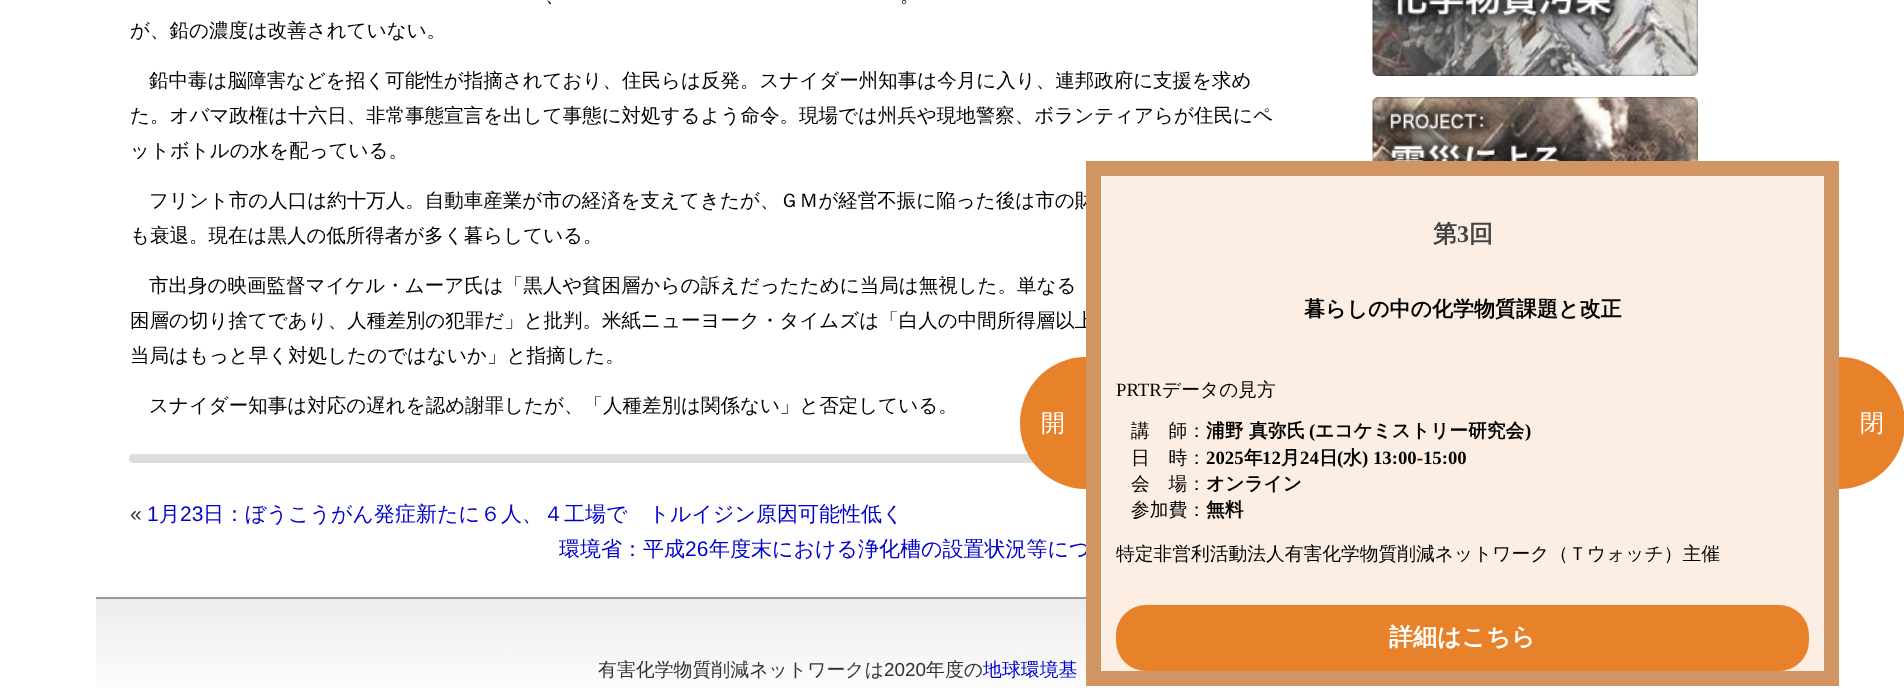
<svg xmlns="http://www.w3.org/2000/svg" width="1904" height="700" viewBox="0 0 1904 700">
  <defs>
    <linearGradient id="g1" gradientUnits="userSpaceOnUse" x1="953" y1="598" x2="953" y2="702"><stop offset="0" stop-color="#ececec"/><stop offset="1" stop-color="#ffffff"/></linearGradient>
  </defs>
  <rect width="100%" height="100%" fill="#ffffff"/>
  <text x="545" y="2" font-family="WenQuanYi Zen Hei" font-size="19.5" font-weight="500" fill="#000000">、</text>
  <text x="900" y="2" font-family="WenQuanYi Zen Hei" font-size="19.5" font-weight="500" fill="#000000">。</text>
  <text x="130" y="37" font-family="WenQuanYi Zen Hei" font-size="19.5" font-weight="500" fill="#000000">が、鉛の濃度は改善されていない。</text>
  <text x="149" y="87" font-family="WenQuanYi Zen Hei" font-size="19.5" font-weight="500" fill="#000000">鉛中毒は脳障害などを招く可能性が指摘されており、住民らは反発。スナイダー州知事は今月に入り、連邦政府に支援を求め</text>
  <text x="130" y="122" font-family="WenQuanYi Zen Hei" font-size="19.5" font-weight="500" fill="#000000">た。オバマ政権は十六日、非常事態宣言を出して事態に対処するよう命令。現場では州兵や現地警察、ボランティアらが住民にペ</text>
  <text x="130" y="157" font-family="WenQuanYi Zen Hei" font-size="19.5" font-weight="500" fill="#000000">ットボトルの水を配っている。</text>
  <text x="149" y="207" font-family="WenQuanYi Zen Hei" font-size="19.5" font-weight="500" fill="#000000">フリント市の人口は約十万人。自動車産業が市の経済を支えてきたが、ＧＭが経営不振に陥った後は市の財</text>
  <text x="130" y="242" font-family="WenQuanYi Zen Hei" font-size="19.5" font-weight="500" fill="#000000">も衰退。現在は黒人の低所得者が多く暮らしている。</text>
  <text x="149" y="292" font-family="WenQuanYi Zen Hei" font-size="19.5" font-weight="500" fill="#000000">市出身の映画監督マイケル・ムーア氏は「黒人や貧困層からの訴えだったために当局は無視した。単なる</text>
  <text x="130" y="327" font-family="WenQuanYi Zen Hei" font-size="19.5" font-weight="500" fill="#000000">困層の切り捨てであり、人種差別の犯罪だ」と批判。米紙ニューヨーク・タイムズは「白人の中間所得層以上</text>
  <text x="130" y="362" font-family="WenQuanYi Zen Hei" font-size="19.5" font-weight="500" fill="#000000">当局はもっと早く対処したのではないか」と指摘した。</text>
  <text x="149" y="412" font-family="WenQuanYi Zen Hei" font-size="19.5" font-weight="500" fill="#000000">スナイダー知事は対応の遅れを認め謝罪したが、「人種差別は関係ない」と否定している。</text>
  <image x="129" y="454" width="905" height="9" href="img1.png"/>
  <text x="130" y="521" font-family="Liberation Sans" font-size="21" fill="#333333">«</text>
  <text x="147" y="521" font-family="Liberation Sans" font-size="21" fill="#0000cc">1</text>
  <text x="159" y="521" font-family="WenQuanYi Zen Hei" font-size="21" font-weight="500" fill="#0000cc">月</text>
  <text x="180" y="521" font-family="Liberation Sans" font-size="21" fill="#0000cc">23</text>
  <text x="203" y="521" font-family="WenQuanYi Zen Hei" font-size="21" font-weight="500" fill="#0000cc">日：ぼうこうがん発症新たに６人、４工場で　トルイジン原因可能性低く</text>
  <text x="559" y="556" font-family="WenQuanYi Zen Hei" font-size="21" font-weight="500" fill="#0000cc">環境省：平成</text>
  <text x="685" y="556" font-family="Liberation Sans" font-size="21" fill="#0000cc">26</text>
  <text x="709" y="556" font-family="WenQuanYi Zen Hei" font-size="21" font-weight="500" fill="#0000cc">年度末における浄化槽の設置状況等につ</text>
  <image x="1372" y="0" width="326" height="76" href="img2.png"/>
  <image x="1372" y="97" width="326" height="64" href="img3.png"/>
  <rect x="96" y="599" width="1715" height="89" fill="url(#g1)"/>
  <rect x="96" y="597" width="990" height="2" fill="#999999"/>
  <text x="598" y="676" font-family="WenQuanYi Zen Hei" font-size="18.9" font-weight="500" fill="#333333">有害化学物質削減ネットワークは</text>
  <text x="884" y="676" font-family="Liberation Sans" font-size="18.9" fill="#333333">2020</text>
  <text x="926" y="676" font-family="WenQuanYi Zen Hei" font-size="18.9" font-weight="500" fill="#333333">年度の</text>
  <text x="983" y="676" font-family="WenQuanYi Zen Hei" font-size="18.9" font-weight="500" fill="#0000cc">地球環境基</text>
  <path d="M1086 357V489C1049.5 489 1020 459.5 1020 423C1020 386.5 1049.5 357 1086 357Z" fill="#e8822a"/>
  <text x="1041" y="431" font-family="WenQuanYi Zen Hei" font-size="24" font-weight="500" fill="#ffffff">開</text>
  <rect x="1093.5" y="168.5" width="738" height="510" fill="#fceee3" stroke="#d19564" stroke-width="15"/>
  <text x="1433" y="242" font-family="WenQuanYi Zen Hei" font-size="24" font-weight="bold" fill="#444444">第</text>
  <text x="1457" y="242" font-family="Liberation Serif" font-size="24" font-weight="bold" fill="#444444">3</text>
  <text x="1469" y="242" font-family="WenQuanYi Zen Hei" font-size="24" font-weight="bold" fill="#444444">回</text>
  <text x="1304" y="316" font-family="WenQuanYi Zen Hei" font-size="21" font-weight="bold" fill="#000000">暮らしの中の化学物質課題と改正</text>
  <text x="1116" y="396" font-family="Liberation Serif" font-size="18.75" fill="#000000">PRTR</text>
  <text x="1162" y="396" font-family="WenQuanYi Zen Hei" font-size="18.75" font-weight="500" fill="#000000">データの見方</text>
  <text x="1131" y="437" font-family="WenQuanYi Zen Hei" font-size="18.75" font-weight="500" fill="#000000">講　師：</text>
  <text x="1206" y="437" font-family="WenQuanYi Zen Hei" font-size="18.75" font-weight="bold" fill="#000000">浦野 真弥氏</text>
  <text x="1309" y="437" font-family="Liberation Serif" font-size="18.75" font-weight="bold" fill="#000000">(</text>
  <text x="1315" y="437" font-family="WenQuanYi Zen Hei" font-size="18.75" font-weight="bold" fill="#000000">エコケミストリー研究会</text>
  <text x="1525" y="437" font-family="Liberation Serif" font-size="18.75" font-weight="bold" fill="#000000">)</text>
  <text x="1131" y="464" font-family="WenQuanYi Zen Hei" font-size="18.75" font-weight="500" fill="#000000">日　時：</text>
  <text x="1206" y="464" font-family="Liberation Serif" font-size="18.75" font-weight="bold" fill="#000000">2025</text>
  <text x="1244" y="464" font-family="WenQuanYi Zen Hei" font-size="18.75" font-weight="bold" fill="#000000">年</text>
  <text x="1262" y="464" font-family="Liberation Serif" font-size="18.75" font-weight="bold" fill="#000000">12</text>
  <text x="1281" y="464" font-family="WenQuanYi Zen Hei" font-size="18.75" font-weight="bold" fill="#000000">月</text>
  <text x="1300" y="464" font-family="Liberation Serif" font-size="18.75" font-weight="bold" fill="#000000">24</text>
  <text x="1319" y="464" font-family="WenQuanYi Zen Hei" font-size="18.75" font-weight="bold" fill="#000000">日</text>
  <text x="1337" y="464" font-family="Liberation Serif" font-size="18.75" font-weight="bold" fill="#000000">(</text>
  <text x="1343" y="464" font-family="WenQuanYi Zen Hei" font-size="18.75" font-weight="bold" fill="#000000">水</text>
  <text x="1362" y="464" font-family="Liberation Serif" font-size="18.75" font-weight="bold" fill="#000000">) 13:00-15:00</text>
  <text x="1131" y="490" font-family="WenQuanYi Zen Hei" font-size="18.75" font-weight="500" fill="#000000">会　場：</text>
  <text x="1206" y="490" font-family="WenQuanYi Zen Hei" font-size="18.75" font-weight="bold" fill="#000000">オンライン</text>
  <text x="1131" y="516" font-family="WenQuanYi Zen Hei" font-size="18.75" font-weight="500" fill="#000000">参加費：</text>
  <text x="1206" y="516" font-family="WenQuanYi Zen Hei" font-size="18.75" font-weight="bold" fill="#000000">無料</text>
  <text x="1116" y="560" font-family="WenQuanYi Zen Hei" font-size="18.75" font-weight="500" fill="#000000">特定非営利活動法人有害化学物質削減ネットワーク（Ｔウォッチ）主催</text>
  <rect x="1116" y="605" width="693" height="66" rx="30" fill="#e8822a"/>
  <text x="1389" y="645" font-family="WenQuanYi Zen Hei" font-size="24" font-weight="bold" fill="#ffffff">詳細はこちら</text>
  <path d="M1839 357C1875.5 357 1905 386.5 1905 423C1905 459.5 1875.5 489 1839 489Z" fill="#e8822a"/>
  <text x="1860" y="431" font-family="WenQuanYi Zen Hei" font-size="24" font-weight="500" fill="#ffffff">閉</text>
</svg>
